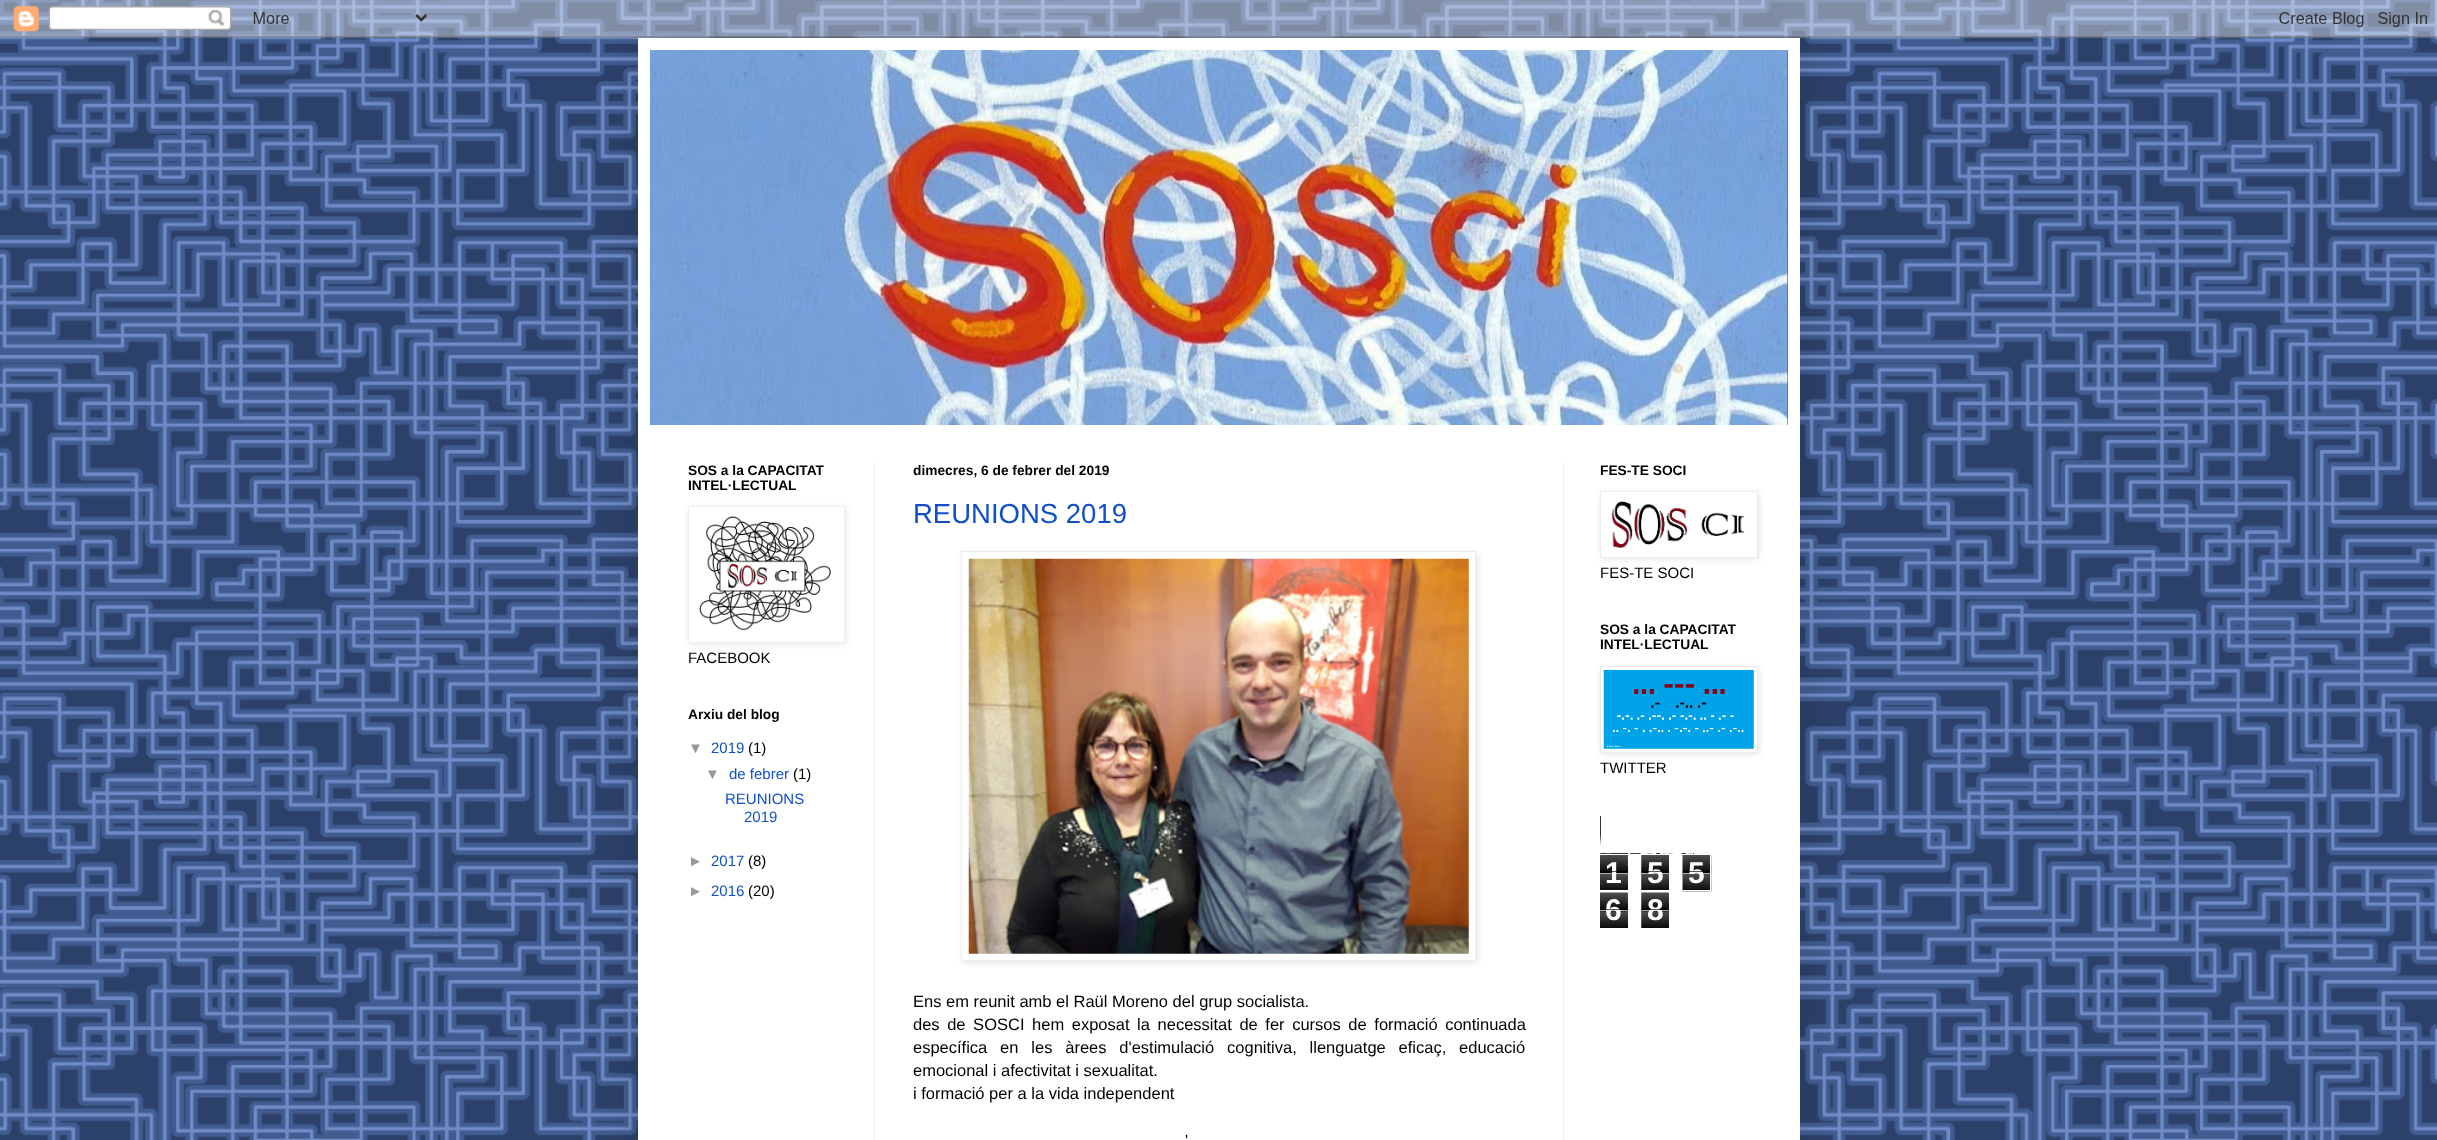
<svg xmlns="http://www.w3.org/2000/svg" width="2437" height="1140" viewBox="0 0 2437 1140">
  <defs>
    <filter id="blur1" x="-50%" y="-200%" width="200%" height="500%"><feGaussianBlur stdDeviation="25"/></filter>
    <filter id="blur2" x="-50%" y="-200%" width="200%" height="500%"><feGaussianBlur stdDeviation="3"/></filter>
  </defs>
  <rect width="100%" height="100%" fill="#ffffff"/>
  <image x="0" y="0" width="2437" height="1140" href="img1.png"/>
  <rect x="638" y="38" width="1162" height="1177" fill="#000000" fill-opacity="0.15" filter="url(#blur1)"/>
  <image x="0" y="0" width="2437" height="38" href="img2.png"/>
  <rect x="638" y="38" width="1162" height="1102" fill="#ffffff"/>
  <rect x="1787" y="50" width="1" height="375" fill="#104fc9"/>
  <image x="1787" y="50" width="1" height="147" href="img3.png"/>
  <image x="650" y="50" width="1138" height="375" href="img4.png"/>
  <rect x="874" y="463" width="1" height="677" fill="#ededed"/>
  <rect x="1563" y="463" width="1" height="677" fill="#ededed"/>
  <text x="688" y="475" font-family="Liberation Sans" font-size="13.75" font-weight="bold" fill="#000000">SOS a la CAPACITAT</text>
  <text x="688" y="490" font-family="Liberation Sans" font-size="13.75" font-weight="bold" fill="#000000">INTEL·LECTUAL</text>
  <rect x="689" y="508" width="157" height="136" fill="#000000" fill-opacity="0.1" filter="url(#blur2)"/>
  <rect x="688.5" y="506.5" width="156" height="136" fill="#ffffff" stroke="#ededed"/>
  <image x="699" y="516" width="132" height="115" href="img5.png"/>
  <text x="688" y="663" font-family="Liberation Sans" font-size="15" fill="#000000">FACEBOOK</text>
  <text x="688" y="719" font-family="Liberation Sans" font-size="13.75" font-weight="bold" fill="#000000">Arxiu del blog</text>
  <text x="688" y="753" font-family="Liberation Sans" font-size="15" fill="#989898">▼</text>
  <text x="711" y="753" font-family="Liberation Sans" font-size="15" fill="#104fc9">2019</text>
  <text x="748" y="753" font-family="Liberation Sans" font-size="15" fill="#000000">(1)</text>
  <text x="705" y="779" font-family="Liberation Sans" font-size="15" fill="#989898">▼</text>
  <text x="729" y="779" font-family="Liberation Sans" font-size="15" fill="#104fc9">de febrer</text>
  <text x="793" y="779" font-family="Liberation Sans" font-size="15" fill="#000000">(1)</text>
  <text x="725" y="804" font-family="Liberation Sans" font-size="15" fill="#104fc9">REUNIONS</text>
  <text x="744" y="822" font-family="Liberation Sans" font-size="15" fill="#104fc9">2019</text>
  <text x="688" y="866" font-family="Liberation Sans" font-size="15" fill="#989898">►</text>
  <text x="711" y="866" font-family="Liberation Sans" font-size="15" fill="#104fc9">2017</text>
  <text x="748" y="866" font-family="Liberation Sans" font-size="15" fill="#000000">(8)</text>
  <text x="688" y="896" font-family="Liberation Sans" font-size="15" fill="#989898">►</text>
  <text x="711" y="896" font-family="Liberation Sans" font-size="15" fill="#104fc9">2016</text>
  <text x="748" y="896" font-family="Liberation Sans" font-size="15" fill="#000000">(20)</text>
  <text x="913" y="475" font-family="Liberation Sans" font-size="13.75" font-weight="bold" fill="#000000">dimecres, 6 de febrer del 2019</text>
  <text x="913" y="523" font-family="Liberation Sans" font-size="27.5" fill="#104fc9">REUNIONS 2019</text>
  <rect x="963" y="553" width="515" height="410" fill="#000000" fill-opacity="0.1" filter="url(#blur2)"/>
  <rect x="961.5" y="551.5" width="514" height="409" fill="#ffffff" stroke="#ededed"/>
  <image x="968" y="558" width="501" height="396" href="img6.png"/>
  <text x="913" y="1007" font-family="Liberation Sans" font-size="16.5" fill="#000000">Ens em reunit amb el Raül Moreno del grup socialista.</text>
  <text x="913" y="1030" word-spacing="3" font-family="Liberation Sans" font-size="16.5" fill="#000000">des de SOSCI hem exposat la necessitat de fer cursos de formació continuada</text>
  <text x="913" y="1053" word-spacing="8.25" font-family="Liberation Sans" font-size="16.5" fill="#000000">específica en les àrees d'estimulació cognitiva, llenguatge eficaç, educació</text>
  <text x="913" y="1076" font-family="Liberation Sans" font-size="16.5" fill="#000000">emocional i afectivitat i sexualitat.</text>
  <text x="913" y="1099" font-family="Liberation Sans" font-size="16.5" fill="#000000">i formació per a la vida independent</text>
  <text x="1185" y="1146" word-spacing="2" font-family="Liberation Sans" font-size="16.5" fill="#000000">'</text>
  <text x="1600" y="475" font-family="Liberation Sans" font-size="13.75" font-weight="bold" fill="#000000">FES-TE SOCI</text>
  <rect x="1601" y="493" width="158" height="66" fill="#000000" fill-opacity="0.1" filter="url(#blur2)"/>
  <rect x="1600.5" y="491.5" width="157" height="66" fill="#ffffff" stroke="#ededed"/>
  <image x="1611" y="501" width="134" height="48" href="img7.png"/>
  <text x="1600" y="578" font-family="Liberation Sans" font-size="15" fill="#000000">FES-TE SOCI</text>
  <text x="1600" y="634" font-family="Liberation Sans" font-size="13.75" font-weight="bold" fill="#000000">SOS a la CAPACITAT</text>
  <text x="1600" y="649" font-family="Liberation Sans" font-size="13.75" font-weight="bold" fill="#000000">INTEL·LECTUAL</text>
  <rect x="1601" y="668" width="158" height="86" fill="#000000" fill-opacity="0.1" filter="url(#blur2)"/>
  <rect x="1600.5" y="666.5" width="157" height="86" fill="#ffffff" stroke="#ededed"/>
  <image x="1603" y="670" width="151" height="79" href="img8.png"/>
  <text x="1600" y="773" font-family="Liberation Sans" font-size="15" fill="#000000">TWITTER</text>
  <image x="1600" y="816" width="94" height="38" href="img9.png"/>
  <image x="1600" y="855" width="28" height="35" href="img10.png"/>
  <text x="1605" y="883" font-family="Liberation Sans" font-size="30" font-weight="bold" fill="#ffffff">1</text>
  <rect x="1600" y="871" width="28" height="1" fill="#000000" fill-opacity="0.65"/>
  <rect x="1600" y="873" width="28" height="1" fill="#ffffff" fill-opacity="0.65"/>
  <image x="1641" y="855" width="28" height="35" href="img11.png"/>
  <text x="1647" y="883" font-family="Liberation Sans" font-size="30" font-weight="bold" fill="#ffffff">5</text>
  <rect x="1641" y="871" width="28" height="1" fill="#000000" fill-opacity="0.65"/>
  <rect x="1641" y="873" width="28" height="1" fill="#ffffff" fill-opacity="0.65"/>
  <image x="1682" y="855" width="30" height="37" href="img12.png"/>
  <rect x="1681.5" y="854.5" width="29" height="36" fill="none" stroke="#ffffff"/>
  <text x="1688" y="883" font-family="Liberation Sans" font-size="30" font-weight="bold" fill="#ffffff">5</text>
  <rect x="1683" y="871" width="27" height="1" fill="#000000" fill-opacity="0.65"/>
  <rect x="1683" y="873" width="27" height="1" fill="#ffffff" fill-opacity="0.65"/>
  <image x="1600" y="892" width="28" height="36" href="img13.png"/>
  <text x="1605" y="920" font-family="Liberation Sans" font-size="30" font-weight="bold" fill="#ffffff">6</text>
  <rect x="1600" y="909" width="28" height="1" fill="#000000" fill-opacity="0.65"/>
  <rect x="1600" y="910" width="28" height="1" fill="#ffffff" fill-opacity="0.65"/>
  <image x="1641" y="892" width="28" height="36" href="img14.png"/>
  <text x="1647" y="920" font-family="Liberation Sans" font-size="30" font-weight="bold" fill="#ffffff">8</text>
  <rect x="1641" y="909" width="28" height="1" fill="#000000" fill-opacity="0.65"/>
  <rect x="1641" y="910" width="28" height="1" fill="#ffffff" fill-opacity="0.65"/>
</svg>
